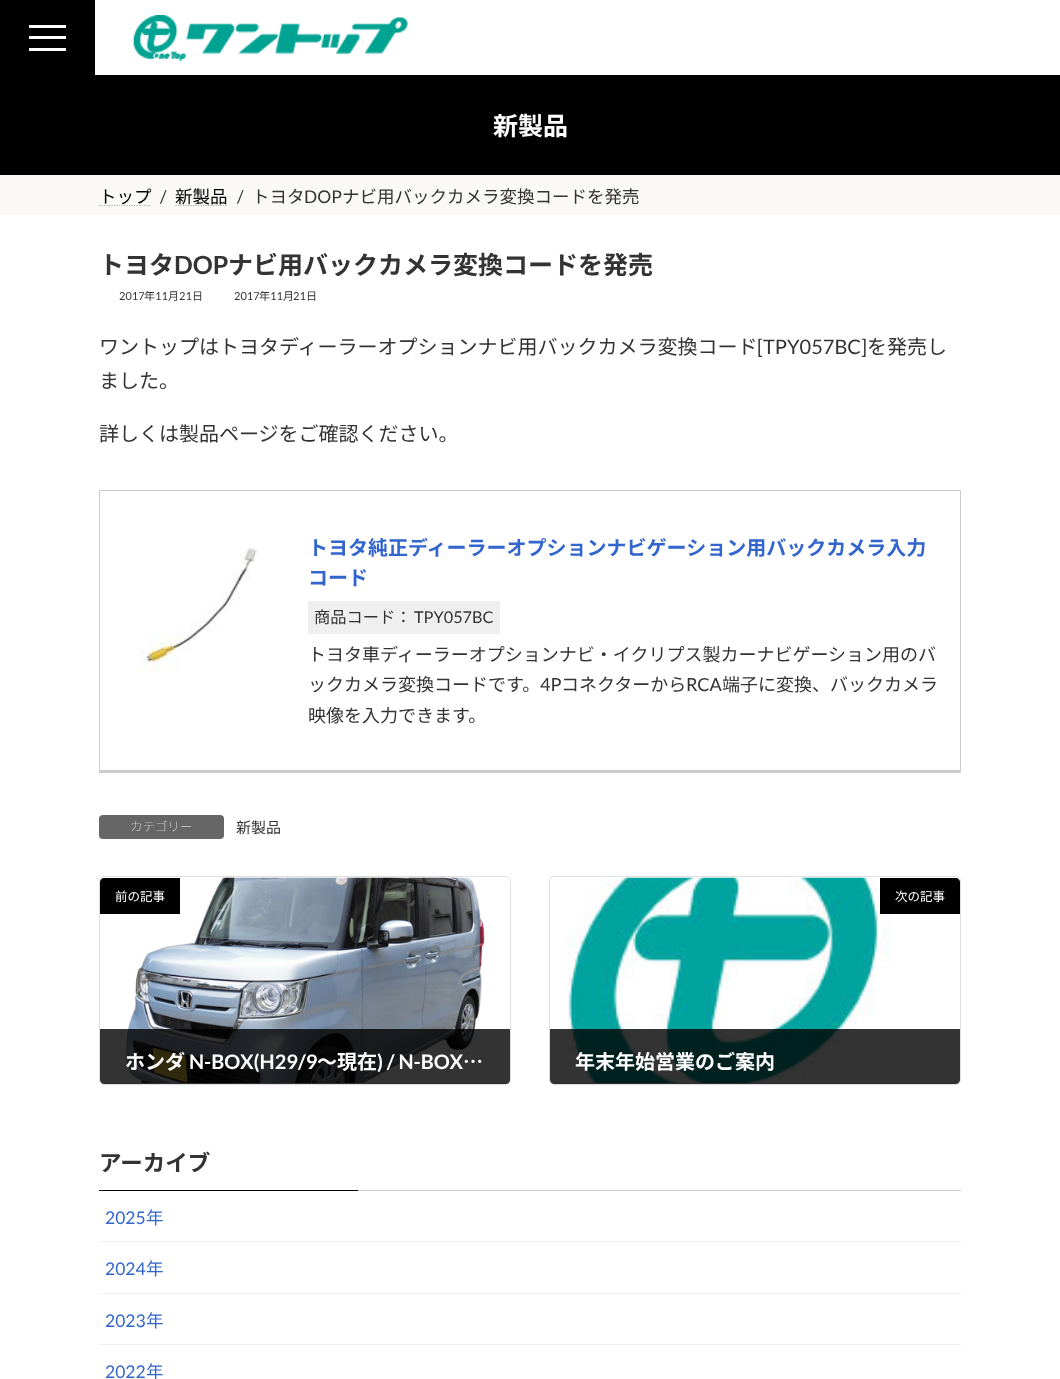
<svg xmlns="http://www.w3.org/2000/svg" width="1060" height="1379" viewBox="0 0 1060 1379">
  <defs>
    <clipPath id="clip1"><rect x="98" y="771" width="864" height="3"/></clipPath>
    <filter id="blur1" x="-50%" y="-200%" width="200%" height="500%"><feGaussianBlur stdDeviation="0.5"/></filter>
    <clipPath id="clip2"><rect x="100" y="878" width="410" height="206" rx="4"/></clipPath>
    <clipPath id="clip3"><rect x="550" y="878" width="410" height="206" rx="4"/></clipPath>
  </defs>
  <rect width="100%" height="100%" fill="#ffffff"/>
  <rect x="0" y="0" width="95" height="75" fill="#000000"/>
  <rect x="29" y="25" width="37" height="3" fill="#ffffff"/>
  <rect x="29" y="36" width="37" height="3" fill="#ffffff"/>
  <rect x="29" y="48" width="37" height="3" fill="#ffffff"/>
  <image x="133" y="15" width="275" height="47" href="img1.png"/>
  <rect x="0" y="75" width="1060" height="100" fill="#000000"/>
  <text x="493" y="135" font-family="Noto Sans JP" font-size="25" font-weight="bold" fill="#ffffff">新製品</text>
  <rect x="0" y="175" width="1060" height="40" fill="#faf9f7"/>
  <path d="M99 205.5H151" fill="none" stroke="#afaead" stroke-width="1.2" stroke-dasharray="1.25 1.25"/>
  <text x="99" y="203" font-family="Noto Sans JP" font-size="17.5" fill="#000000">トップ</text>
  <text x="160" y="203" font-family="Lato" font-size="17.5" fill="#333333">/</text>
  <path d="M175.5 205.5H228" fill="none" stroke="#afaead" stroke-width="1.2" stroke-dasharray="1.25 1.25"/>
  <text x="175" y="203" font-family="Noto Sans JP" font-size="17.5" fill="#000000">新製品</text>
  <text x="237" y="203" font-family="Lato" font-size="17.5" fill="#333333">/</text>
  <text x="252" y="203" font-family="Noto Sans JP" font-size="17.5" fill="#333333">トヨタ</text>
  <text x="304" y="203" font-family="Lato" font-size="17.5" fill="#333333">DOP</text>
  <text x="342" y="203" font-family="Noto Sans JP" font-size="17.5" fill="#333333">ナビ用バックカメラ変換コードを発売</text>
  <text x="99" y="274" font-family="Noto Sans JP" font-size="25" font-weight="bold" fill="#333333">トヨタ</text>
  <text x="174" y="274" font-family="Lato" font-size="25" font-weight="bold" fill="#333333">DOP</text>
  <text x="228" y="274" font-family="Noto Sans JP" font-size="25" font-weight="bold" fill="#333333">ナビ用バックカメラ変換コードを発売</text>
  <text x="119" y="300" font-family="Lato" font-size="11" fill="#333333">2017</text>
  <text x="144" y="300" font-family="Noto Sans JP" font-size="11" fill="#333333">年</text>
  <text x="155" y="300" font-family="Lato" font-size="11" fill="#333333">11</text>
  <text x="168" y="300" font-family="Noto Sans JP" font-size="11" fill="#333333">月</text>
  <text x="179" y="300" font-family="Lato" font-size="11" fill="#333333">21</text>
  <text x="192" y="300" font-family="Noto Sans JP" font-size="11" fill="#333333">日</text>
  <text x="234" y="300" font-family="Lato" font-size="11" fill="#333333">2017</text>
  <text x="259" y="300" font-family="Noto Sans JP" font-size="11" fill="#333333">年</text>
  <text x="270" y="300" font-family="Lato" font-size="11" fill="#333333">11</text>
  <text x="283" y="300" font-family="Noto Sans JP" font-size="11" fill="#333333">月</text>
  <text x="293" y="300" font-family="Lato" font-size="11" fill="#333333">21</text>
  <text x="306" y="300" font-family="Noto Sans JP" font-size="11" fill="#333333">日</text>
  <text x="99" y="354" font-family="Noto Sans JP" font-size="20" fill="#333333">ワントップはトヨタディーラーオプションナビ用バックカメラ変換コード</text>
  <text x="757" y="354" font-family="Lato" font-size="20" fill="#333333">[TPY057BC]</text>
  <text x="867" y="354" font-family="Noto Sans JP" font-size="20" fill="#333333">を発売し</text>
  <text x="99" y="388" font-family="Noto Sans JP" font-size="20" fill="#333333">ました。</text>
  <text x="99" y="441" font-family="Noto Sans JP" font-size="20" fill="#333333">詳しくは製品ページをご確認ください。</text>
  <g clip-path="url(#clip1)">
    <rect x="99" y="491" width="862" height="282" fill="#000000" fill-opacity="0.2" filter="url(#blur1)"/>
  </g>
  <rect x="99.5" y="490.5" width="861" height="280" fill="none" stroke="#cccccc"/>
  <image x="139" y="547" width="121" height="125" href="img2.png"/>
  <text x="308" y="555" font-family="Noto Sans JP" font-size="20" font-weight="bold" fill="#3366cc">トヨタ純正ディーラーオプションナビゲーション用バックカメラ入力</text>
  <text x="308" y="585" font-family="Noto Sans JP" font-size="20" font-weight="bold" fill="#3366cc">コード</text>
  <rect x="308" y="601" width="192" height="33" fill="#efefef"/>
  <text x="314" y="623" font-family="Noto Sans JP" font-size="16.25" fill="#333333">商品コード：</text>
  <text x="414" y="623" font-family="Lato" font-size="16.25" fill="#333333">TPY057BC</text>
  <text x="308" y="661" font-family="Noto Sans JP" font-size="18" fill="#333333">トヨタ車ディーラーオプションナビ・イクリプス製カーナビゲーション用のバ</text>
  <text x="308" y="691" font-family="Noto Sans JP" font-size="18" fill="#333333">ックカメラ変換コードです。</text>
  <text x="540" y="691" font-family="Lato" font-size="18" fill="#333333">4P</text>
  <text x="561" y="691" font-family="Noto Sans JP" font-size="18" fill="#333333">コネクターから</text>
  <text x="686" y="691" font-family="Lato" font-size="18" fill="#333333">RCA</text>
  <text x="722" y="691" font-family="Noto Sans JP" font-size="18" fill="#333333">端子に変換、バックカメラ</text>
  <text x="308" y="722" font-family="Noto Sans JP" font-size="18" fill="#333333">映像を入力できます。</text>
  <rect x="99" y="815" width="125" height="24" rx="4" fill="#666666"/>
  <text x="130" y="831" font-family="Noto Sans JP" font-size="12.5" font-weight="100" fill="#ffffff">カテゴリー</text>
  <text x="236" y="833" font-family="Noto Sans JP" font-size="15" fill="#333333">新製品</text>
  <rect x="99.5" y="876.5" width="411" height="208" rx="4.5" fill="none" stroke="#dfdfdf"/>
  <image x="100" y="877" width="410" height="207" href="img3.png"/>
  <g clip-path="url(#clip2)">
    <rect x="100" y="1083" width="410" height="1" fill="#e5e5e5"/>
  </g>
  <path d="M104 878H180V914H100V882C100 880 102 878 104 878Z" fill="#000000"/>
  <text x="115" y="901" font-family="Noto Sans JP" font-size="12.5" fill="#ffffff">前の記事</text>
  <path d="M100 1029H510V1080C510 1082 508 1084 506 1084H104C102 1084 100 1082 100 1080Z" fill="#000000" fill-opacity="0.8"/>
  <text x="125" y="1069" font-family="Noto Sans JP" font-size="20" font-weight="bold" fill="#ffffff">ホンダ</text>
  <text x="189" y="1069" font-family="Lato" font-size="20" font-weight="bold" fill="#ffffff">N-BOX(H29/9</text>
  <text x="317" y="1069" font-family="Noto Sans JP" font-size="20" font-weight="bold" fill="#ffffff">～現在</text>
  <text x="377" y="1069" font-family="Lato" font-size="20" font-weight="bold" fill="#ffffff">) / N-BOX</text>
  <text x="463" y="1069" font-family="Noto Sans JP" font-size="20" font-weight="bold" fill="#ffffff">…</text>
  <rect x="549.5" y="876.5" width="411" height="208" rx="4.5" fill="none" stroke="#dfdfdf"/>
  <image x="550" y="877" width="410" height="207" href="img4.png"/>
  <g clip-path="url(#clip3)">
    <rect x="550" y="1083" width="410" height="1" fill="#e5e5e5"/>
  </g>
  <path d="M880 878H956C958 878 960 880 960 882V914H880Z" fill="#000000"/>
  <text x="895" y="901" font-family="Noto Sans JP" font-size="12.5" fill="#ffffff">次の記事</text>
  <path d="M550 1029H960V1080C960 1082 958 1084 956 1084H554C552 1084 550 1082 550 1080Z" fill="#000000" fill-opacity="0.8"/>
  <text x="575" y="1069" font-family="Noto Sans JP" font-size="20" font-weight="bold" fill="#ffffff">年末年始営業のご案内</text>
  <rect x="358" y="1190" width="603" height="1" fill="#cccccc"/>
  <text x="99" y="1171" font-family="Noto Sans JP" font-size="22.5" font-weight="bold" fill="#333333">アーカイブ</text>
  <rect x="99" y="1190" width="259" height="1" fill="#000000"/>
  <rect x="99" y="1241" width="862" height="1" fill="#f0f0f0"/>
  <text x="105" y="1224" font-family="Lato" font-size="17.5" fill="#3366cc">2025</text>
  <text x="146" y="1224" font-family="Noto Sans JP" font-size="17.5" fill="#3366cc">年</text>
  <rect x="99" y="1293" width="862" height="1" fill="#f0f0f0"/>
  <text x="105" y="1275" font-family="Lato" font-size="17.5" fill="#3366cc">2024</text>
  <text x="146" y="1275" font-family="Noto Sans JP" font-size="17.5" fill="#3366cc">年</text>
  <rect x="99" y="1344" width="862" height="1" fill="#f0f0f0"/>
  <text x="105" y="1327" font-family="Lato" font-size="17.5" fill="#3366cc">2023</text>
  <text x="146" y="1327" font-family="Noto Sans JP" font-size="17.5" fill="#3366cc">年</text>
  <text x="105" y="1378" font-family="Lato" font-size="17.5" fill="#3366cc">2022</text>
  <text x="146" y="1378" font-family="Noto Sans JP" font-size="17.5" fill="#3366cc">年</text>
</svg>
